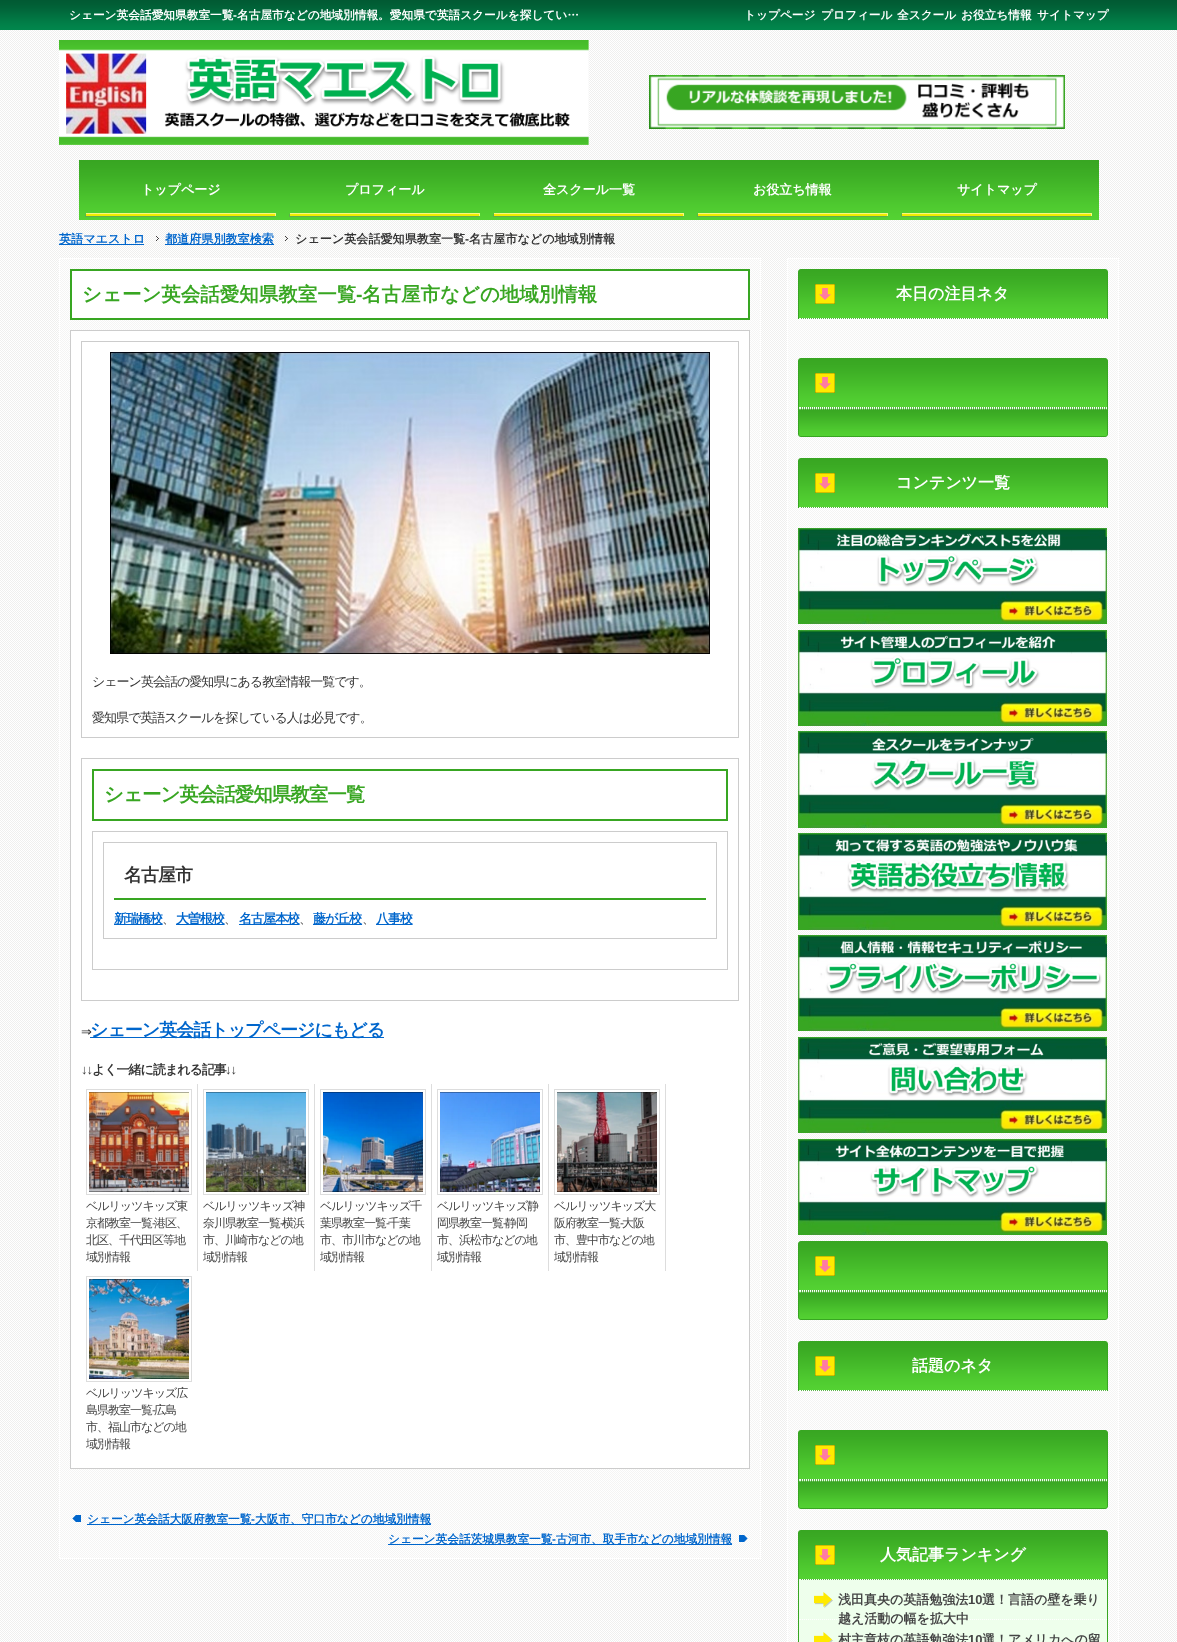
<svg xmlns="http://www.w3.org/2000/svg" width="1177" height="1642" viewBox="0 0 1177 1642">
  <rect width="100%" height="100%" fill="#ffffff"/>
  <image x="0" y="30" width="1177" height="1612" href="img1.png"/>
  <image x="0" y="0" width="1177" height="30" href="img2.png"/>
  <text x="69" y="19" font-family="WenQuanYi Zen Hei" font-size="11.7" font-weight="bold" fill="#ffffff">シェーン英会話愛知県教室一覧</text>
  <text x="233" y="19" font-family="Liberation Sans" font-size="11.7" font-weight="bold" fill="#ffffff">-</text>
  <text x="237" y="19" font-family="WenQuanYi Zen Hei" font-size="11.7" font-weight="bold" fill="#ffffff">名古屋市などの地域別情報。愛知県で英語スクールを探してい…</text>
  <text x="744" y="19" font-family="WenQuanYi Zen Hei" font-size="11.7" font-weight="bold" fill="#ffffff">トップページ</text>
  <text x="821" y="19" font-family="WenQuanYi Zen Hei" font-size="11.7" font-weight="bold" fill="#ffffff">プロフィール</text>
  <text x="897" y="19" font-family="WenQuanYi Zen Hei" font-size="11.7" font-weight="bold" fill="#ffffff">全スクール</text>
  <text x="961" y="19" font-family="WenQuanYi Zen Hei" font-size="11.7" font-weight="bold" fill="#ffffff">お役立ち情報</text>
  <text x="1037" y="19" font-family="WenQuanYi Zen Hei" font-size="11.7" font-weight="bold" fill="#ffffff">サイトマップ</text>
  <image x="59" y="40" width="530" height="105" href="img3.png"/>
  <image x="649" y="75" width="416" height="54" href="img4.png"/>
  <image x="79" y="160" width="204" height="60" href="img5.png"/>
  <text x="141" y="194" font-family="WenQuanYi Zen Hei" font-size="13" font-weight="bold" fill="#ffffff">トップページ</text>
  <image x="283" y="160" width="204" height="60" href="img5.png"/>
  <text x="345" y="194" font-family="WenQuanYi Zen Hei" font-size="13" font-weight="bold" fill="#ffffff">プロフィール</text>
  <image x="487" y="160" width="204" height="60" href="img5.png"/>
  <text x="543" y="194" font-family="WenQuanYi Zen Hei" font-size="13" font-weight="bold" fill="#ffffff">全スクール一覧</text>
  <image x="691" y="160" width="204" height="60" href="img5.png"/>
  <text x="753" y="194" font-family="WenQuanYi Zen Hei" font-size="13" font-weight="bold" fill="#ffffff">お役立ち情報</text>
  <image x="895" y="160" width="204" height="60" href="img5.png"/>
  <text x="957" y="194" font-family="WenQuanYi Zen Hei" font-size="13" font-weight="bold" fill="#ffffff">サイトマップ</text>
  <rect x="59" y="244" width="85" height="1" fill="#0066cc"/>
  <text x="59" y="243" font-family="WenQuanYi Zen Hei" font-size="12.1" font-weight="bold" fill="#0066cc">英語マエストロ</text>
  <image x="156" y="236" width="3" height="5" href="img6.png"/>
  <rect x="165" y="244" width="109" height="1" fill="#0066cc"/>
  <text x="165" y="243" font-family="WenQuanYi Zen Hei" font-size="12.1" font-weight="bold" fill="#0066cc">都道府県別教室検索</text>
  <image x="285" y="236" width="3" height="5" href="img7.png"/>
  <text x="295" y="243" font-family="WenQuanYi Zen Hei" font-size="12.1" font-weight="bold" fill="#333333">シェーン英会話愛知県教室一覧</text>
  <text x="465" y="243" font-family="Liberation Sans" font-size="12.1" font-weight="bold" fill="#333333">-</text>
  <text x="469" y="243" font-family="WenQuanYi Zen Hei" font-size="12.1" font-weight="bold" fill="#333333">名古屋市などの地域別情報</text>
  <image x="60" y="259" width="700" height="1299" href="img8.png"/>
  <rect x="59.5" y="258.5" width="701" height="1300" fill="none" stroke="#ffffff"/>
  <rect x="71" y="270" width="678" height="49" fill="#ffffff" stroke="#38a622" stroke-width="2"/>
  <text x="82" y="301" font-family="WenQuanYi Zen Hei" font-size="19.5" font-weight="bold" fill="#38a622">シェーン英会話愛知県教室一覧</text>
  <text x="356" y="301" font-family="Liberation Sans" font-size="19.5" font-weight="bold" fill="#38a622">-</text>
  <text x="362" y="301" font-family="WenQuanYi Zen Hei" font-size="19.5" font-weight="bold" fill="#38a622">名古屋市などの地域別情報</text>
  <rect x="70.5" y="330.5" width="679" height="1138" fill="#ffffff" stroke="#cccccc"/>
  <rect x="81.5" y="341.5" width="657" height="396" fill="none" stroke="#cccccc"/>
  <image x="110" y="352" width="600" height="302" href="img9.png"/>
  <text x="92" y="686" font-family="WenQuanYi Zen Hei" font-size="13" font-weight="500" letter-spacing="-1" fill="#333333">シェーン英会話の愛知県にある教室情報一覧です。</text>
  <text x="92" y="722" font-family="WenQuanYi Zen Hei" font-size="13" font-weight="500" letter-spacing="-1" fill="#333333">愛知県で英語スクールを探している人は必見です。</text>
  <rect x="81.5" y="758.5" width="657" height="242" fill="none" stroke="#cccccc"/>
  <rect x="93" y="770" width="634" height="50" fill="none" stroke="#38a622" stroke-width="2"/>
  <text x="104" y="801" font-family="WenQuanYi Zen Hei" font-size="19.5" font-weight="bold" letter-spacing="-1" fill="#38a622">シェーン英会話愛知県教室一覧</text>
  <rect x="92.5" y="831.5" width="635" height="138" fill="none" stroke="#cccccc"/>
  <rect x="103.5" y="842.5" width="613" height="96" fill="none" stroke="#cccccc"/>
  <rect x="114" y="898" width="592" height="2" fill="#38a622"/>
  <text x="124" y="881" font-family="WenQuanYi Zen Hei" font-size="18" font-weight="bold" letter-spacing="-1" fill="#333333">名古屋市</text>
  <rect x="114" y="924" width="48" height="1" fill="#0066cc"/>
  <text x="114" y="923" font-family="WenQuanYi Zen Hei" font-size="13" font-weight="bold" letter-spacing="-1" fill="#0066cc">新瑞橋校</text>
  <text x="162" y="923" font-family="WenQuanYi Zen Hei" font-size="13" font-weight="500" letter-spacing="-1" fill="#333333">、</text>
  <rect x="176" y="924" width="48" height="1" fill="#0066cc"/>
  <text x="176" y="923" font-family="WenQuanYi Zen Hei" font-size="13" font-weight="bold" letter-spacing="-1" fill="#0066cc">大曽根校</text>
  <text x="224" y="923" font-family="WenQuanYi Zen Hei" font-size="13" font-weight="500" letter-spacing="-1" fill="#333333">、</text>
  <rect x="239" y="924" width="60" height="1" fill="#0066cc"/>
  <text x="239" y="923" font-family="WenQuanYi Zen Hei" font-size="13" font-weight="bold" letter-spacing="-1" fill="#0066cc">名古屋本校</text>
  <text x="299" y="923" font-family="WenQuanYi Zen Hei" font-size="13" font-weight="500" letter-spacing="-1" fill="#333333">、</text>
  <rect x="313" y="924" width="49" height="1" fill="#0066cc"/>
  <text x="313" y="923" font-family="WenQuanYi Zen Hei" font-size="13" font-weight="bold" letter-spacing="-1" fill="#0066cc">藤が丘校</text>
  <text x="362" y="923" font-family="WenQuanYi Zen Hei" font-size="13" font-weight="500" letter-spacing="-1" fill="#333333">、</text>
  <rect x="376" y="924" width="36" height="1" fill="#0066cc"/>
  <text x="376" y="923" font-family="WenQuanYi Zen Hei" font-size="13" font-weight="bold" letter-spacing="-1" fill="#0066cc">八事校</text>
  <text x="81" y="1036" font-family="DejaVu Sans" font-size="13" letter-spacing="-1" fill="#333333">⇒</text>
  <rect x="90" y="1037" width="294" height="1" fill="#0066cc"/>
  <text x="90" y="1036" font-family="WenQuanYi Zen Hei" font-size="18" font-weight="bold" letter-spacing="-1" fill="#0066cc">シェーン英会話トップページにもどる</text>
  <text x="81" y="1074" font-family="Liberation Sans" font-size="13" font-weight="bold" letter-spacing="-1" fill="#333333">↓↓</text>
  <text x="92" y="1074" font-family="WenQuanYi Zen Hei" font-size="13" font-weight="bold" letter-spacing="-1" fill="#333333">よく一緒に読まれる記事</text>
  <text x="225" y="1074" font-family="Liberation Sans" font-size="13" font-weight="bold" letter-spacing="-1" fill="#333333">↓↓</text>
  <rect x="197" y="1084" width="1" height="187" fill="#dddddd"/>
  <rect x="86.5" y="1089.5" width="105" height="105" fill="none" stroke="#dddddd"/>
  <image x="89" y="1092" width="100" height="100" href="img10.png"/>
  <text x="86" y="1210" font-family="WenQuanYi Zen Hei" font-size="12" font-weight="500" letter-spacing="-1" fill="#444444">ベルリッツキッズ東</text>
  <text x="86" y="1227" font-family="WenQuanYi Zen Hei" font-size="12" font-weight="500" letter-spacing="-1" fill="#444444">京都教室一覧</text>
  <text x="152" y="1227" font-family="Liberation Sans" font-size="12" letter-spacing="-1" fill="#444444">-</text>
  <text x="154" y="1227" font-family="WenQuanYi Zen Hei" font-size="12" font-weight="500" letter-spacing="-1" fill="#444444">港区、</text>
  <text x="86" y="1244" font-family="WenQuanYi Zen Hei" font-size="12" font-weight="500" letter-spacing="-1" fill="#444444">北区、千代田区等地</text>
  <text x="86" y="1261" font-family="WenQuanYi Zen Hei" font-size="12" font-weight="500" letter-spacing="-1" fill="#444444">域別情報</text>
  <rect x="314" y="1084" width="1" height="187" fill="#dddddd"/>
  <rect x="203.5" y="1089.5" width="105" height="105" fill="none" stroke="#dddddd"/>
  <image x="206" y="1092" width="100" height="100" href="img11.png"/>
  <text x="203" y="1210" font-family="WenQuanYi Zen Hei" font-size="12" font-weight="500" letter-spacing="-1" fill="#444444">ベルリッツキッズ神</text>
  <text x="203" y="1227" font-family="WenQuanYi Zen Hei" font-size="12" font-weight="500" letter-spacing="-1" fill="#444444">奈川県教室一覧</text>
  <text x="280" y="1227" font-family="Liberation Sans" font-size="12" letter-spacing="-1" fill="#444444">-</text>
  <text x="282" y="1227" font-family="WenQuanYi Zen Hei" font-size="12" font-weight="500" letter-spacing="-1" fill="#444444">横浜</text>
  <text x="203" y="1244" font-family="WenQuanYi Zen Hei" font-size="12" font-weight="500" letter-spacing="-1" fill="#444444">市、川崎市などの地</text>
  <text x="203" y="1261" font-family="WenQuanYi Zen Hei" font-size="12" font-weight="500" letter-spacing="-1" fill="#444444">域別情報</text>
  <rect x="431" y="1084" width="1" height="187" fill="#dddddd"/>
  <rect x="320.5" y="1089.5" width="105" height="105" fill="none" stroke="#dddddd"/>
  <image x="323" y="1092" width="100" height="100" href="img12.png"/>
  <text x="320" y="1210" font-family="WenQuanYi Zen Hei" font-size="12" font-weight="500" letter-spacing="-1" fill="#444444">ベルリッツキッズ千</text>
  <text x="320" y="1227" font-family="WenQuanYi Zen Hei" font-size="12" font-weight="500" letter-spacing="-1" fill="#444444">葉県教室一覧</text>
  <text x="386" y="1227" font-family="Liberation Sans" font-size="12" letter-spacing="-1" fill="#444444">-</text>
  <text x="388" y="1227" font-family="WenQuanYi Zen Hei" font-size="12" font-weight="500" letter-spacing="-1" fill="#444444">千葉</text>
  <text x="320" y="1244" font-family="WenQuanYi Zen Hei" font-size="12" font-weight="500" letter-spacing="-1" fill="#444444">市、市川市などの地</text>
  <text x="320" y="1261" font-family="WenQuanYi Zen Hei" font-size="12" font-weight="500" letter-spacing="-1" fill="#444444">域別情報</text>
  <rect x="548" y="1084" width="1" height="187" fill="#dddddd"/>
  <rect x="437.5" y="1089.5" width="105" height="105" fill="none" stroke="#dddddd"/>
  <image x="440" y="1092" width="100" height="100" href="img13.png"/>
  <text x="437" y="1210" font-family="WenQuanYi Zen Hei" font-size="12" font-weight="500" letter-spacing="-1" fill="#444444">ベルリッツキッズ静</text>
  <text x="437" y="1227" font-family="WenQuanYi Zen Hei" font-size="12" font-weight="500" letter-spacing="-1" fill="#444444">岡県教室一覧</text>
  <text x="503" y="1227" font-family="Liberation Sans" font-size="12" letter-spacing="-1" fill="#444444">-</text>
  <text x="505" y="1227" font-family="WenQuanYi Zen Hei" font-size="12" font-weight="500" letter-spacing="-1" fill="#444444">静岡</text>
  <text x="437" y="1244" font-family="WenQuanYi Zen Hei" font-size="12" font-weight="500" letter-spacing="-1" fill="#444444">市、浜松市などの地</text>
  <text x="437" y="1261" font-family="WenQuanYi Zen Hei" font-size="12" font-weight="500" letter-spacing="-1" fill="#444444">域別情報</text>
  <rect x="665" y="1084" width="1" height="187" fill="#dddddd"/>
  <rect x="554.5" y="1089.5" width="105" height="105" fill="none" stroke="#dddddd"/>
  <image x="557" y="1092" width="100" height="100" href="img14.png"/>
  <text x="554" y="1210" font-family="WenQuanYi Zen Hei" font-size="12" font-weight="500" letter-spacing="-1" fill="#444444">ベルリッツキッズ大</text>
  <text x="554" y="1227" font-family="WenQuanYi Zen Hei" font-size="12" font-weight="500" letter-spacing="-1" fill="#444444">阪府教室一覧</text>
  <text x="620" y="1227" font-family="Liberation Sans" font-size="12" letter-spacing="-1" fill="#444444">-</text>
  <text x="622" y="1227" font-family="WenQuanYi Zen Hei" font-size="12" font-weight="500" letter-spacing="-1" fill="#444444">大阪</text>
  <text x="554" y="1244" font-family="WenQuanYi Zen Hei" font-size="12" font-weight="500" letter-spacing="-1" fill="#444444">市、豊中市などの地</text>
  <text x="554" y="1261" font-family="WenQuanYi Zen Hei" font-size="12" font-weight="500" letter-spacing="-1" fill="#444444">域別情報</text>
  <rect x="86.5" y="1276.5" width="105" height="105" fill="none" stroke="#dddddd"/>
  <image x="89" y="1279" width="100" height="100" href="img15.png"/>
  <text x="86" y="1397" font-family="WenQuanYi Zen Hei" font-size="12" font-weight="500" letter-spacing="-1" fill="#444444">ベルリッツキッズ広</text>
  <text x="86" y="1414" font-family="WenQuanYi Zen Hei" font-size="12" font-weight="500" letter-spacing="-1" fill="#444444">島県教室一覧</text>
  <text x="152" y="1414" font-family="Liberation Sans" font-size="12" letter-spacing="-1" fill="#444444">-</text>
  <text x="154" y="1414" font-family="WenQuanYi Zen Hei" font-size="12" font-weight="500" letter-spacing="-1" fill="#444444">広島</text>
  <text x="86" y="1431" font-family="WenQuanYi Zen Hei" font-size="12" font-weight="500" letter-spacing="-1" fill="#444444">市、福山市などの地</text>
  <text x="86" y="1448" font-family="WenQuanYi Zen Hei" font-size="12" font-weight="500" letter-spacing="-1" fill="#444444">域別情報</text>
  <image x="72" y="1515" width="9" height="7" href="img16.png"/>
  <rect x="87" y="1524" width="344" height="1" fill="#0066cc"/>
  <text x="87" y="1523" font-family="WenQuanYi Zen Hei" font-size="11.7" font-weight="bold" fill="#0066cc">シェーン英会話大阪府教室一覧</text>
  <text x="251" y="1523" font-family="Liberation Sans" font-size="11.7" font-weight="bold" fill="#0066cc">-</text>
  <text x="255" y="1523" font-family="WenQuanYi Zen Hei" font-size="11.7" font-weight="bold" fill="#0066cc">大阪市、守口市などの地域別情報</text>
  <rect x="388" y="1544" width="344" height="1" fill="#0066cc"/>
  <text x="388" y="1543" font-family="WenQuanYi Zen Hei" font-size="11.7" font-weight="bold" fill="#0066cc">シェーン英会話茨城県教室一覧</text>
  <text x="552" y="1543" font-family="Liberation Sans" font-size="11.7" font-weight="bold" fill="#0066cc">-</text>
  <text x="556" y="1543" font-family="WenQuanYi Zen Hei" font-size="11.7" font-weight="bold" fill="#0066cc">古河市、取手市などの地域別情報</text>
  <image x="739" y="1535" width="9" height="7" href="img17.png"/>
  <image x="788" y="259" width="330" height="1383" href="img18.png"/>
  <rect x="787.5" y="258.5" width="331" height="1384" fill="none" stroke="#ffffff"/>
  <image x="798" y="269" width="310" height="50" href="img19.png"/>
  <text x="896" y="299" font-family="WenQuanYi Zen Hei" font-size="16" font-weight="bold" fill="#ffffff">本日の注目ネタ</text>
  <image x="798" y="358" width="310" height="50" href="img20.png"/>
  <image x="798" y="408" width="310" height="29" href="img21.png"/>
  <image x="798" y="458" width="310" height="50" href="img20.png"/>
  <text x="896" y="488" font-family="WenQuanYi Zen Hei" font-size="16" font-weight="bold" fill="#ffffff">コンテンツ一覧</text>
  <image x="798" y="528" width="309" height="96" href="img22.png"/>
  <image x="798" y="630" width="309" height="96" href="img23.png"/>
  <image x="798" y="731" width="309" height="97" href="img24.png"/>
  <image x="798" y="833" width="309" height="97" href="img25.png"/>
  <image x="798" y="935" width="309" height="96" href="img26.png"/>
  <image x="798" y="1037" width="309" height="96" href="img27.png"/>
  <image x="798" y="1139" width="309" height="96" href="img28.png"/>
  <image x="798" y="1241" width="310" height="50" href="img19.png"/>
  <image x="798" y="1291" width="310" height="29" href="img29.png"/>
  <image x="798" y="1341" width="310" height="50" href="img19.png"/>
  <text x="912" y="1371" font-family="WenQuanYi Zen Hei" font-size="16" font-weight="bold" fill="#ffffff">話題のネタ</text>
  <image x="798" y="1430" width="310" height="50" href="img20.png"/>
  <image x="798" y="1480" width="310" height="29" href="img21.png"/>
  <image x="798" y="1530" width="310" height="50" href="img20.png"/>
  <text x="880" y="1560" font-family="WenQuanYi Zen Hei" font-size="16" font-weight="bold" fill="#ffffff">人気記事ランキング</text>
  <image x="798" y="1580" width="310" height="40" href="img30.png"/>
  <text x="838" y="1604" font-family="WenQuanYi Zen Hei" font-size="13" font-weight="bold" fill="#444444">浅田真央の英語勉強法</text>
  <text x="968" y="1604" font-family="Liberation Sans" font-size="13" font-weight="bold" fill="#444444">10</text>
  <text x="982" y="1604" font-family="WenQuanYi Zen Hei" font-size="13" font-weight="bold" fill="#444444">選！言語の壁を乗り</text>
  <image x="798" y="1620" width="310" height="22" href="img31.png"/>
  <text x="838" y="1623" font-family="WenQuanYi Zen Hei" font-size="13" font-weight="bold" fill="#444444">越え活動の幅を拡大中</text>
  <text x="838" y="1644" font-family="WenQuanYi Zen Hei" font-size="13" font-weight="bold" fill="#444444">村主章枝の英語勉強法</text>
  <text x="968" y="1644" font-family="Liberation Sans" font-size="13" font-weight="bold" fill="#444444">10</text>
  <text x="982" y="1644" font-family="WenQuanYi Zen Hei" font-size="13" font-weight="bold" fill="#444444">選！アメリカへの留</text>
</svg>
